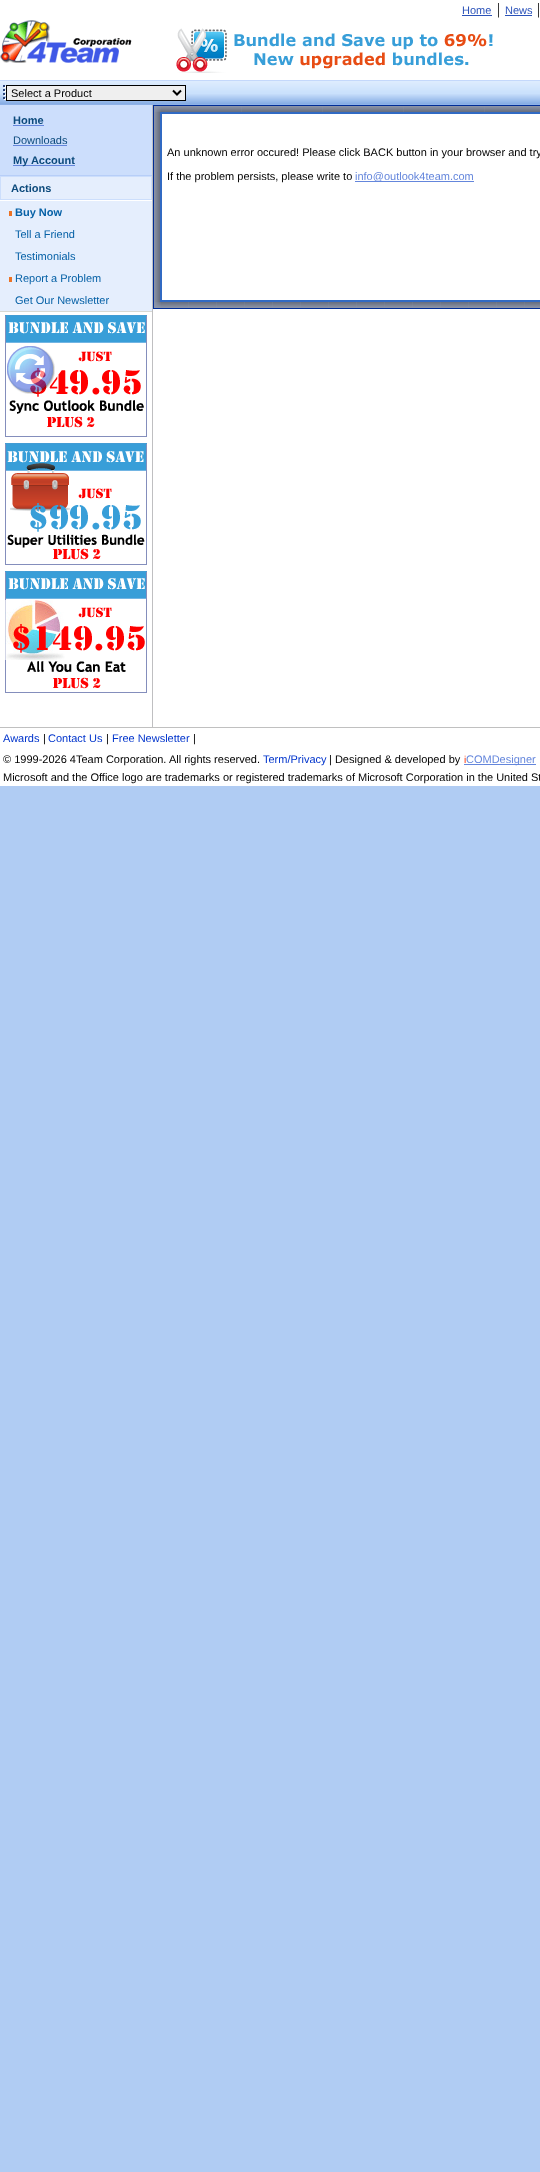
<svg xmlns="http://www.w3.org/2000/svg" width="540" height="2172" viewBox="0 0 540 2172">
  <rect width="100%" height="100%" fill="#b0ccf3"/>
  <rect x="0" y="0" width="540" height="80" fill="#ffffff"/>
  <text x="462" y="14" font-family="Liberation Sans" font-size="11" fill="#2b52b9">Home</text>
  <rect x="462" y="15" width="30" height="1" fill="#2b52b9"/>
  <text x="497" y="14" font-family="Liberation Serif" font-size="16" fill="#000000">|</text>
  <text x="505" y="14" font-family="Liberation Sans" font-size="11" fill="#2b52b9">News</text>
  <rect x="505" y="15" width="27" height="1" fill="#2b52b9"/>
  <text x="537" y="14" font-family="Liberation Serif" font-size="16" fill="#000000">|</text>
  <image x="0" y="20" width="132" height="43" href="img1.png"/>
  <image x="176" y="28" width="317" height="45" href="img2.png"/>
  <image x="0" y="81" width="540" height="23" href="img3.png"/>
  <rect x="0" y="80" width="540" height="1" fill="#c4d8fb"/>
  <rect x="0" y="104" width="540" height="1" fill="#8eb1e7"/>
  <image x="3" y="85" width="3" height="15" href="img4.png"/>
  <rect x="6.5" y="85.5" width="179" height="15" fill="#efefef" stroke="#000000"/>
  <path d="M173 90.5L177 94.5L181 90.5" fill="none" stroke="#000000" stroke-width="2"/>
  <text x="11" y="97" font-family="Liberation Sans" font-size="11" fill="#000000">Select a Product</text>
  <rect x="0" y="114" width="540" height="613" fill="#ffffff"/>
  <rect x="152" y="105" width="1" height="622" fill="#bfbfc1"/>
  <rect x="0" y="105" width="152" height="70" fill="#ccdefc"/>
  <rect x="0" y="175" width="152" height="1" fill="#b7cef8"/>
  <text x="13" y="124" font-family="Liberation Sans" font-size="11" font-weight="bold" fill="#0c4a7c">Home</text>
  <rect x="13" y="125" width="31" height="1" fill="#6486dc"/>
  <text x="13" y="144" font-family="Liberation Sans" font-size="11" fill="#0c4a7c">Downloads</text>
  <rect x="13" y="145" width="54" height="1" fill="#6486dc"/>
  <rect x="13" y="165" width="62" height="1" fill="#6486dc"/>
  <text x="13" y="164" font-family="Liberation Sans" font-size="11" font-weight="bold" fill="#0c4a7c">My Account</text>
  <rect x="0.5" y="176.5" width="151" height="23" fill="#e5eefd" stroke="#ccdefc"/>
  <text x="11" y="192" font-family="Liberation Sans" font-size="11" font-weight="bold" fill="#0c4a7c">Actions</text>
  <rect x="0" y="201" width="152" height="110" fill="#e5eefd"/>
  <rect x="0" y="311" width="152" height="1" fill="#d8d9d4"/>
  <rect x="9" y="211" width="3" height="5" fill="#ec7224"/>
  <text x="15" y="216" font-family="Liberation Sans" font-size="11" font-weight="bold" fill="#0560a6">Buy Now</text>
  <text x="15" y="238" font-family="Liberation Sans" font-size="11" fill="#0560a6">Tell a Friend</text>
  <text x="15" y="260" font-family="Liberation Sans" font-size="11" fill="#0560a6">Testimonials</text>
  <rect x="9" y="277" width="3" height="5" fill="#ec7224"/>
  <text x="15" y="282" font-family="Liberation Sans" font-size="11" fill="#0560a6">Report a Problem</text>
  <text x="15" y="304" font-family="Liberation Sans" font-size="11" fill="#0560a6">Get Our Newsletter</text>
  <image x="5" y="315" width="142" height="122" href="img5.png"/>
  <image x="5" y="443" width="142" height="122" href="img6.png"/>
  <image x="5" y="571" width="142" height="122" href="img7.png"/>
  <rect x="153.5" y="105.5" width="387" height="203" fill="none" stroke="#002d96"/>
  <image x="154" y="106" width="6" height="6" href="img8.png"/>
  <image x="160" y="106" width="380" height="6" href="img9.png"/>
  <image x="154" y="112" width="6" height="190" href="img10.png"/>
  <rect x="161" y="113" width="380" height="188" fill="none" stroke="#316ac3" stroke-width="2"/>
  <text x="167" y="156" font-family="Liberation Sans" font-size="11" fill="#000000">An unknown error occured! Please click BACK button in your browser and try</text>
  <text x="167" y="180" font-family="Liberation Sans" font-size="11" fill="#000000">If the problem persists, please write to</text>
  <rect x="355" y="181" width="119" height="1" fill="#6486dc"/>
  <text x="355" y="180" font-family="Liberation Sans" font-size="11" fill="#6486dc">info@outlook4team.com</text>
  <image x="154" y="302" width="6" height="6" href="img11.png"/>
  <image x="160" y="302" width="380" height="6" href="img12.png"/>
  <rect x="0" y="728" width="540" height="58" fill="#ffffff"/>
  <rect x="0" y="727" width="540" height="1" fill="#c0c0c0"/>
  <text x="3" y="742" font-family="Liberation Sans" font-size="11" fill="#0034cc">Awards</text>
  <text x="43" y="742" font-family="Liberation Sans" font-size="11" fill="#000000">|</text>
  <text x="48" y="742" font-family="Liberation Sans" font-size="11" fill="#0034cc">Contact Us</text>
  <text x="106" y="742" font-family="Liberation Sans" font-size="11" fill="#000000">|</text>
  <text x="112" y="742" font-family="Liberation Sans" font-size="11" fill="#0034cc">Free Newsletter</text>
  <text x="193" y="742" font-family="Liberation Sans" font-size="11" fill="#000000">|</text>
  <text x="3" y="763" font-family="Liberation Sans" font-size="11" fill="#000000">© 1999-2026 4Team Corporation. All rights reserved.</text>
  <text x="263" y="763" font-family="Liberation Sans" font-size="11" fill="#0034cc">Term/Privacy</text>
  <text x="329" y="763" font-family="Liberation Sans" font-size="11" fill="#000000">| Designed &amp; developed by</text>
  <text x="464" y="763" font-family="Liberation Sans" font-size="10" fill="#ff3300">i</text>
  <rect x="464" y="764" width="72" height="1" fill="#6486dc"/>
  <text x="466" y="763" font-family="Liberation Sans" font-size="11" fill="#6486dc">COMDesigner</text>
  <text x="3" y="781" font-family="Liberation Sans" font-size="11" fill="#000000">Microsoft and the Office logo are trademarks or registered trademarks of Microsoft Corporation in the United St</text>
</svg>
